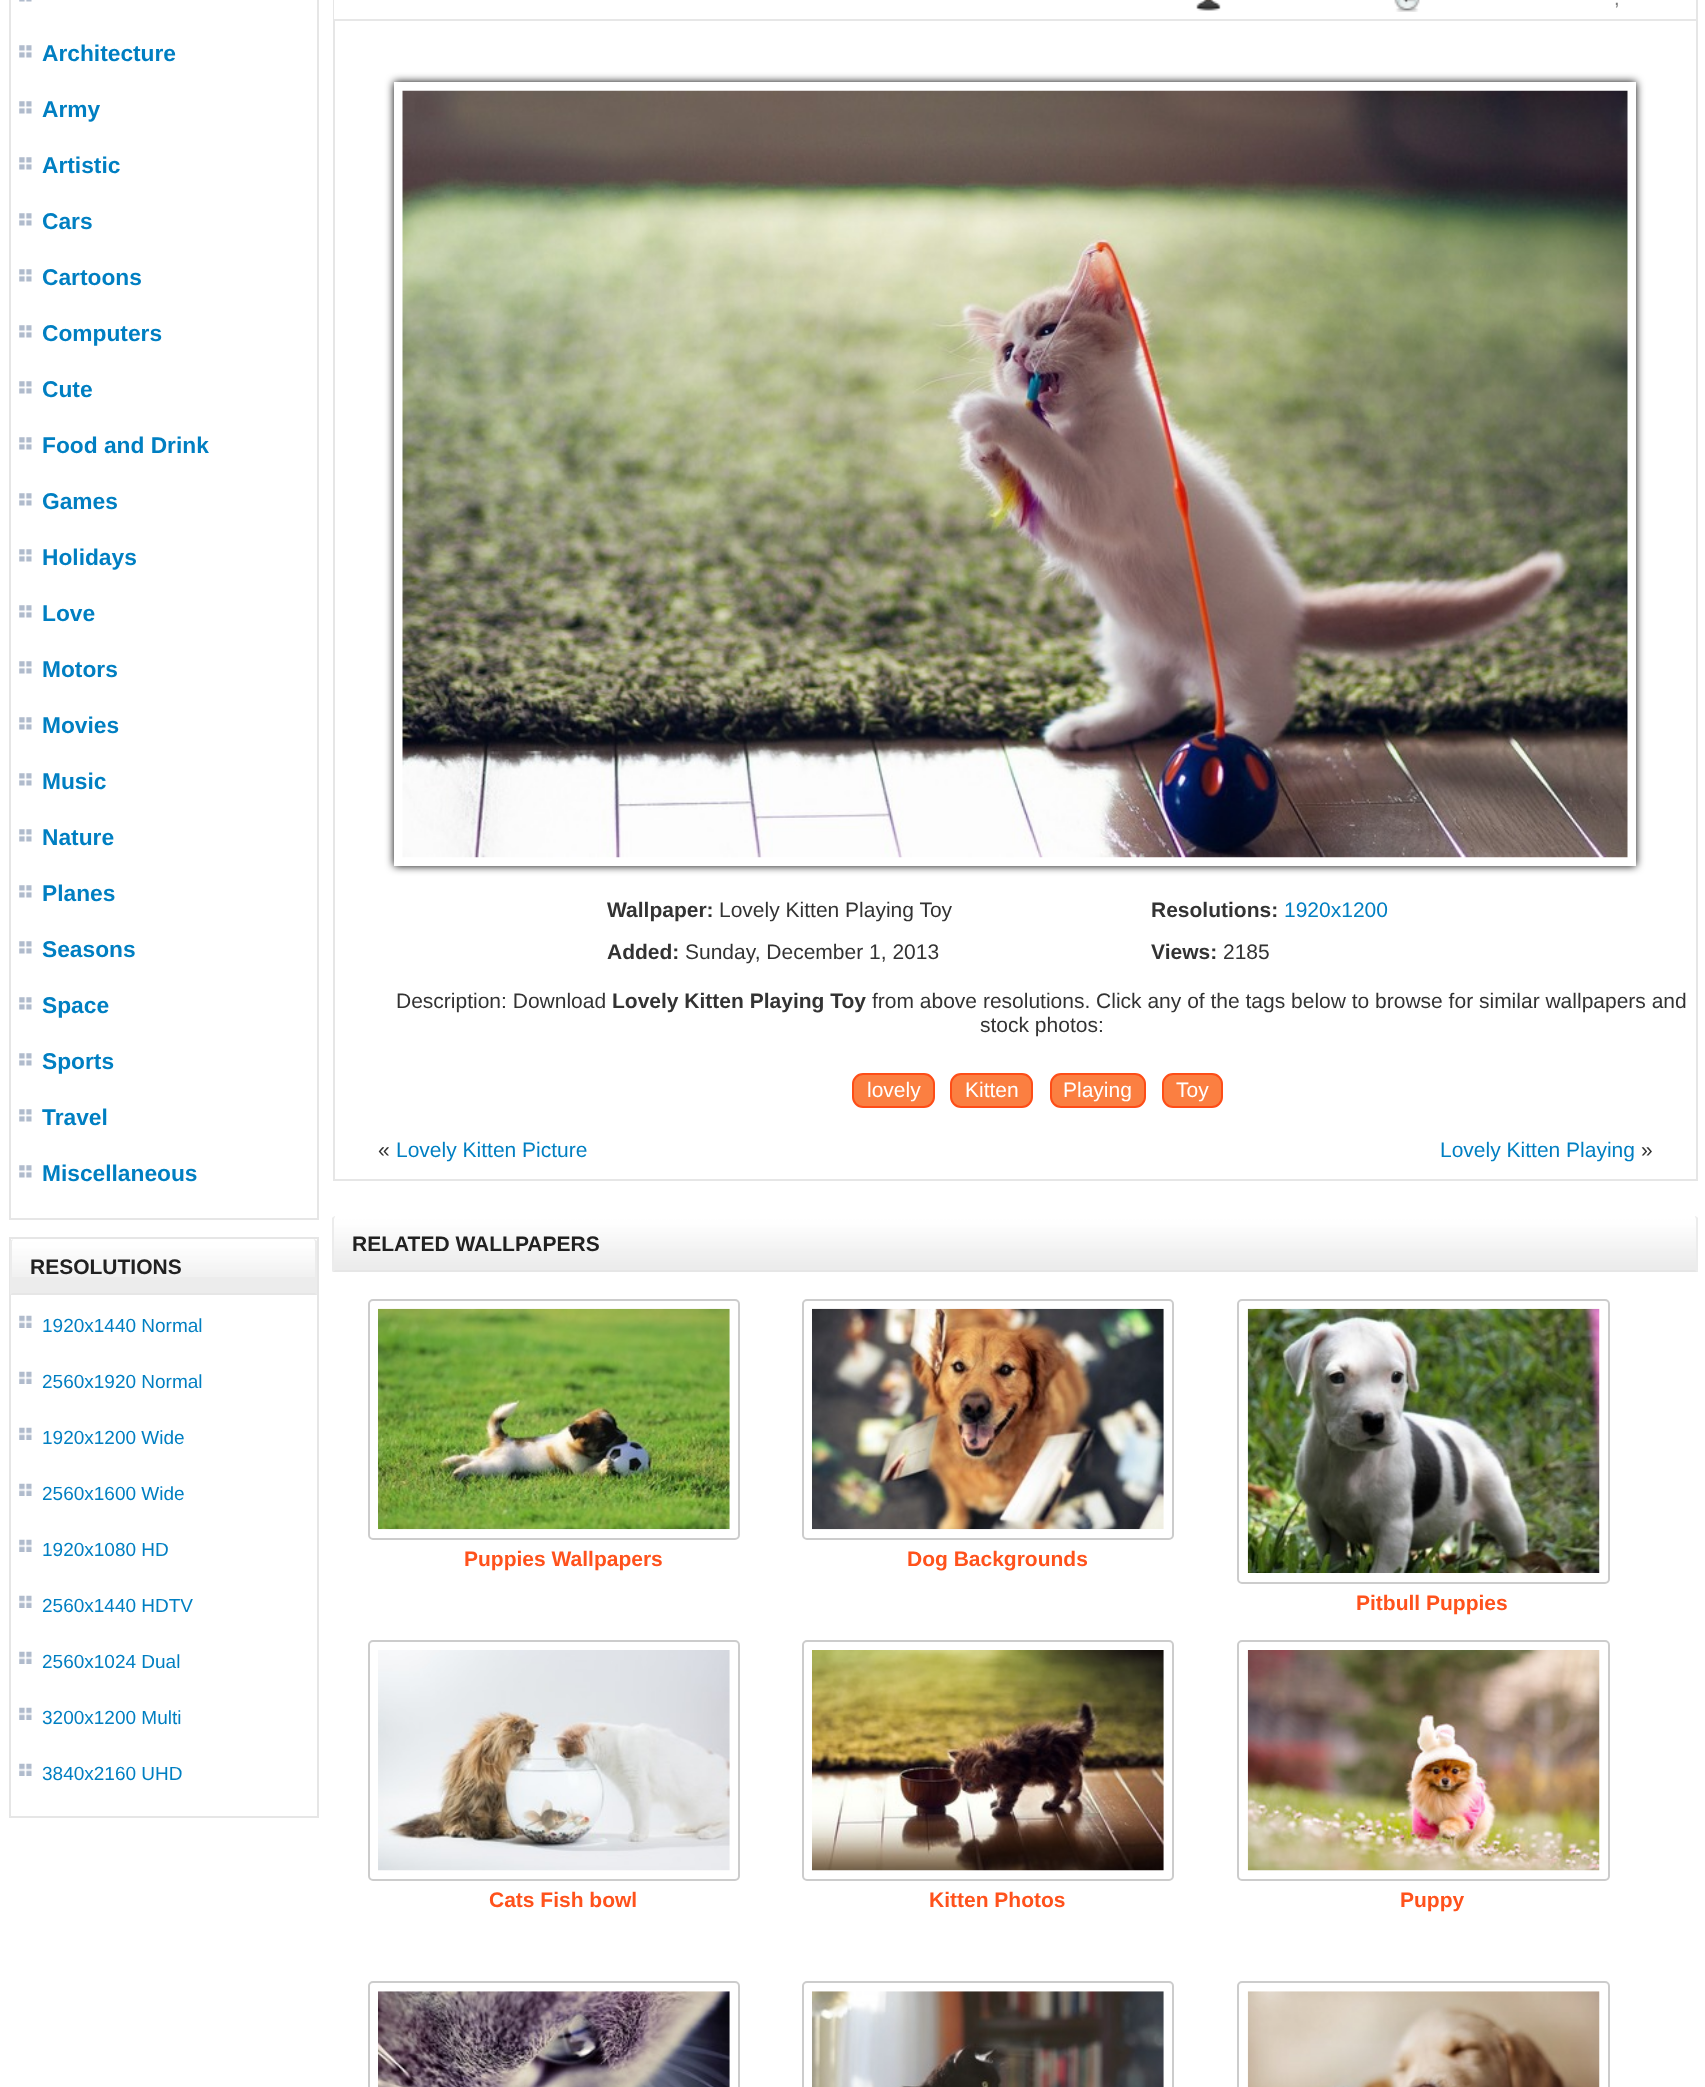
<svg xmlns="http://www.w3.org/2000/svg" width="1705" height="2087" viewBox="0 0 1705 2087">
  <defs>
    <clipPath id="clip1"><path d="M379 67H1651V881H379ZM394 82H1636V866H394Z" clip-rule="evenodd"/></clipPath>
    <filter id="blur1" x="-50%" y="-200%" width="200%" height="500%"><feGaussianBlur stdDeviation="4.5"/></filter>
  </defs>
  <rect width="100%" height="100%" fill="#ffffff"/>
  <rect x="10" y="-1" width="308" height="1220" fill="none" stroke="#e6e6e6" stroke-width="2"/>
  <image x="19" y="0" width="13" height="2" href="img1.png"/>
  <image x="19" y="45" width="13" height="13" href="img2.png"/>
  <text x="42" y="61" font-family="Liberation Sans" font-size="22.75" font-weight="bold" fill="#007fc2">Architecture</text>
  <image x="19" y="101" width="13" height="13" href="img2.png"/>
  <text x="42" y="117" font-family="Liberation Sans" font-size="22.75" font-weight="bold" fill="#007fc2">Army</text>
  <image x="19" y="157" width="13" height="13" href="img2.png"/>
  <text x="42" y="173" font-family="Liberation Sans" font-size="22.75" font-weight="bold" fill="#007fc2">Artistic</text>
  <image x="19" y="213" width="13" height="13" href="img2.png"/>
  <text x="42" y="229" font-family="Liberation Sans" font-size="22.75" font-weight="bold" fill="#007fc2">Cars</text>
  <image x="19" y="269" width="13" height="13" href="img2.png"/>
  <text x="42" y="285" font-family="Liberation Sans" font-size="22.75" font-weight="bold" fill="#007fc2">Cartoons</text>
  <image x="19" y="325" width="13" height="13" href="img2.png"/>
  <text x="42" y="341" font-family="Liberation Sans" font-size="22.75" font-weight="bold" fill="#007fc2">Computers</text>
  <image x="19" y="381" width="13" height="13" href="img2.png"/>
  <text x="42" y="397" font-family="Liberation Sans" font-size="22.75" font-weight="bold" fill="#007fc2">Cute</text>
  <image x="19" y="437" width="13" height="13" href="img2.png"/>
  <text x="42" y="453" font-family="Liberation Sans" font-size="22.75" font-weight="bold" fill="#007fc2">Food and Drink</text>
  <image x="19" y="493" width="13" height="13" href="img2.png"/>
  <text x="42" y="509" font-family="Liberation Sans" font-size="22.75" font-weight="bold" fill="#007fc2">Games</text>
  <image x="19" y="549" width="13" height="13" href="img2.png"/>
  <text x="42" y="565" font-family="Liberation Sans" font-size="22.75" font-weight="bold" fill="#007fc2">Holidays</text>
  <image x="19" y="605" width="13" height="13" href="img2.png"/>
  <text x="42" y="621" font-family="Liberation Sans" font-size="22.75" font-weight="bold" fill="#007fc2">Love</text>
  <image x="19" y="661" width="13" height="13" href="img2.png"/>
  <text x="42" y="677" font-family="Liberation Sans" font-size="22.75" font-weight="bold" fill="#007fc2">Motors</text>
  <image x="19" y="717" width="13" height="13" href="img2.png"/>
  <text x="42" y="733" font-family="Liberation Sans" font-size="22.75" font-weight="bold" fill="#007fc2">Movies</text>
  <image x="19" y="773" width="13" height="13" href="img2.png"/>
  <text x="42" y="789" font-family="Liberation Sans" font-size="22.75" font-weight="bold" fill="#007fc2">Music</text>
  <image x="19" y="829" width="13" height="13" href="img2.png"/>
  <text x="42" y="845" font-family="Liberation Sans" font-size="22.75" font-weight="bold" fill="#007fc2">Nature</text>
  <image x="19" y="885" width="13" height="13" href="img2.png"/>
  <text x="42" y="901" font-family="Liberation Sans" font-size="22.75" font-weight="bold" fill="#007fc2">Planes</text>
  <image x="19" y="941" width="13" height="13" href="img2.png"/>
  <text x="42" y="957" font-family="Liberation Sans" font-size="22.75" font-weight="bold" fill="#007fc2">Seasons</text>
  <image x="19" y="997" width="13" height="13" href="img2.png"/>
  <text x="42" y="1013" font-family="Liberation Sans" font-size="22.75" font-weight="bold" fill="#007fc2">Space</text>
  <image x="19" y="1053" width="13" height="13" href="img2.png"/>
  <text x="42" y="1069" font-family="Liberation Sans" font-size="22.75" font-weight="bold" fill="#007fc2">Sports</text>
  <image x="19" y="1109" width="13" height="13" href="img2.png"/>
  <text x="42" y="1125" font-family="Liberation Sans" font-size="22.75" font-weight="bold" fill="#007fc2">Travel</text>
  <image x="19" y="1165" width="13" height="13" href="img2.png"/>
  <text x="42" y="1181" font-family="Liberation Sans" font-size="22.75" font-weight="bold" fill="#007fc2">Miscellaneous</text>
  <rect x="10" y="1238" width="308" height="579" fill="none" stroke="#e6e6e6" stroke-width="2"/>
  <path d="M15 1239H313C315 1239 317 1241 317 1243V1295H11V1243C11 1241 13 1239 15 1239Z" fill="#ececec"/>
  <image x="10" y="1239" width="307" height="38" href="img3.png"/>
  <path d="M317 1241C316 1240 315 1239 313 1239C314 1239 315 1241 315 1242V1293L317 1295Z" fill="#ececec"/>
  <path d="M317 1295H10L12 1293H315Z" fill="#e6e6e6"/>
  <path d="M14 1239C13 1239 12 1241 12 1242V1293L10 1295V1241C11 1240 13 1239 14 1239Z" fill="#ececec"/>
  <text x="30" y="1274" font-family="Liberation Sans" font-size="21" font-weight="bold" fill="#212121">RESOLUTIONS</text>
  <image x="19" y="1315" width="13" height="13" href="img4.png"/>
  <text x="42" y="1332" font-family="Liberation Sans" font-size="19" fill="#007fc2">1920x1440 Normal</text>
  <image x="19" y="1371" width="13" height="13" href="img4.png"/>
  <text x="42" y="1388" font-family="Liberation Sans" font-size="19" fill="#007fc2">2560x1920 Normal</text>
  <image x="19" y="1427" width="13" height="13" href="img4.png"/>
  <text x="42" y="1444" font-family="Liberation Sans" font-size="19" fill="#007fc2">1920x1200 Wide</text>
  <image x="19" y="1483" width="13" height="13" href="img4.png"/>
  <text x="42" y="1500" font-family="Liberation Sans" font-size="19" fill="#007fc2">2560x1600 Wide</text>
  <image x="19" y="1539" width="13" height="13" href="img4.png"/>
  <text x="42" y="1556" font-family="Liberation Sans" font-size="19" fill="#007fc2">1920x1080 HD</text>
  <image x="19" y="1595" width="13" height="13" href="img4.png"/>
  <text x="42" y="1612" font-family="Liberation Sans" font-size="19" fill="#007fc2">2560x1440 HDTV</text>
  <image x="19" y="1651" width="13" height="13" href="img4.png"/>
  <text x="42" y="1668" font-family="Liberation Sans" font-size="19" fill="#007fc2">2560x1024 Dual</text>
  <image x="19" y="1707" width="13" height="13" href="img4.png"/>
  <text x="42" y="1724" font-family="Liberation Sans" font-size="19" fill="#007fc2">3200x1200 Multi</text>
  <image x="19" y="1763" width="13" height="13" href="img4.png"/>
  <text x="42" y="1780" font-family="Liberation Sans" font-size="19" fill="#007fc2">3840x2160 UHD</text>
  <rect x="334" y="-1" width="1363" height="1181" fill="none" stroke="#e6e6e6" stroke-width="2"/>
  <rect x="334" y="0" width="1" height="19" fill="#ffffff"/>
  <rect x="334" y="19" width="1362" height="2" fill="#e7e7e7"/>
  <image x="1196" y="0" width="25" height="11" href="img5.png"/>
  <image x="1394" y="0" width="26" height="12" href="img6.png"/>
  <text x="1614" y="5" font-family="Liberation Sans" font-size="20" fill="#7b7b7b">,</text>
  <g clip-path="url(#clip1)">
    <rect x="394" y="82" width="1242" height="784" fill="#000000" filter="url(#blur1)"/>
  </g>
  <image x="402" y="90" width="1226" height="768" href="img7.png"/>
  <text x="607" y="917" font-family="Liberation Sans" font-size="21" font-weight="bold" fill="#333333">Wallpaper:</text>
  <text x="719" y="917" font-family="Liberation Sans" font-size="21" fill="#333333">Lovely Kitten Playing Toy</text>
  <text x="1151" y="917" font-family="Liberation Sans" font-size="21" font-weight="bold" fill="#333333">Resolutions:</text>
  <text x="1284" y="917" font-family="Liberation Sans" font-size="21" fill="#007fc2">1920x1200</text>
  <text x="607" y="959" font-family="Liberation Sans" font-size="21" font-weight="bold" fill="#333333">Added:</text>
  <text x="685" y="959" font-family="Liberation Sans" font-size="21" fill="#333333">Sunday, December 1, 2013</text>
  <text x="1151" y="959" font-family="Liberation Sans" font-size="21" font-weight="bold" fill="#333333">Views:</text>
  <text x="1223" y="959" font-family="Liberation Sans" font-size="21" fill="#333333">2185</text>
  <text x="396" y="1008" font-family="Liberation Sans" font-size="21" fill="#333333">Description: Download</text>
  <text x="612" y="1008" font-family="Liberation Sans" font-size="21" font-weight="bold" fill="#333333">Lovely Kitten Playing Toy</text>
  <text x="872" y="1008" font-family="Liberation Sans" font-size="21" fill="#333333">from above resolutions. Click any of the tags below to browse for similar wallpapers and</text>
  <text x="980" y="1032" font-family="Liberation Sans" font-size="21" fill="#333333">stock photos:</text>
  <rect x="853" y="1074" width="81" height="33" rx="10" fill="#fb7f41" stroke="#fe4d17" stroke-width="2"/>
  <text x="867" y="1097" font-family="Liberation Sans" font-size="21" fill="#ffffff">lovely</text>
  <rect x="951" y="1074" width="81" height="33" rx="10" fill="#fb7f41" stroke="#fe4d17" stroke-width="2"/>
  <text x="965" y="1097" font-family="Liberation Sans" font-size="21" fill="#ffffff">Kitten</text>
  <rect x="1051" y="1074" width="94" height="33" rx="10" fill="#fb7f41" stroke="#fe4d17" stroke-width="2"/>
  <text x="1063" y="1097" font-family="Liberation Sans" font-size="21" fill="#ffffff">Playing</text>
  <rect x="1163" y="1074" width="59" height="33" rx="10" fill="#fb7f41" stroke="#fe4d17" stroke-width="2"/>
  <text x="1176" y="1097" font-family="Liberation Sans" font-size="21" fill="#ffffff">Toy</text>
  <text x="378" y="1157" font-family="Liberation Sans" font-size="21" fill="#333333">«</text>
  <text x="396" y="1157" font-family="Liberation Sans" font-size="21" fill="#007fc2">Lovely Kitten Picture</text>
  <text x="1440" y="1157" font-family="Liberation Sans" font-size="21" fill="#007fc2">Lovely Kitten Playing</text>
  <text x="1641" y="1157" font-family="Liberation Sans" font-size="21" fill="#333333">»</text>
  <path d="M337 1216H1694C1696 1216 1698 1218 1698 1220V1272H333V1220C333 1218 335 1216 337 1216Z" fill="#ececec"/>
  <image x="332" y="1216" width="1365" height="52" href="img8.png"/>
  <path d="M1695 1270H1696V1220C1696 1218 1695 1217 1695 1216C1696 1216 1697 1217 1698 1218V1272Z" fill="#ececec"/>
  <path d="M335 1270H1695L1697 1272H333Z" fill="#e6e6e6"/>
  <path d="M335 1216C335 1217 334 1218 334 1220V1270H335L332 1272V1218C333 1217 334 1216 335 1216Z" fill="#ececec"/>
  <text x="352" y="1251" font-family="Liberation Sans" font-size="21" font-weight="bold" fill="#212121">RELATED WALLPAPERS</text>
  <rect x="369" y="1300" width="370" height="239" rx="4" fill="none" stroke="#cccccc" stroke-width="2"/>
  <image x="378" y="1308" width="352" height="222" href="img9.png"/>
  <text x="464" y="1566" font-family="Liberation Sans" font-size="21" font-weight="bold" fill="#ff521c">Puppies Wallpapers</text>
  <rect x="803" y="1300" width="370" height="239" rx="4" fill="none" stroke="#cccccc" stroke-width="2"/>
  <image x="812" y="1308" width="352" height="222" href="img10.png"/>
  <text x="907" y="1566" font-family="Liberation Sans" font-size="21" font-weight="bold" fill="#ff521c">Dog Backgrounds</text>
  <rect x="1238" y="1300" width="371" height="283" rx="4" fill="none" stroke="#cccccc" stroke-width="2"/>
  <image x="1247" y="1308" width="353" height="265" href="img11.png"/>
  <text x="1356" y="1610" font-family="Liberation Sans" font-size="21" font-weight="bold" fill="#ff521c">Pitbull Puppies</text>
  <rect x="369" y="1641" width="370" height="239" rx="4" fill="none" stroke="#cccccc" stroke-width="2"/>
  <image x="378" y="1650" width="352" height="221" href="img12.png"/>
  <text x="489" y="1907" font-family="Liberation Sans" font-size="21" font-weight="bold" fill="#ff521c">Cats Fish bowl</text>
  <rect x="803" y="1641" width="370" height="239" rx="4" fill="none" stroke="#cccccc" stroke-width="2"/>
  <image x="812" y="1650" width="352" height="221" href="img13.png"/>
  <text x="929" y="1907" font-family="Liberation Sans" font-size="21" font-weight="bold" fill="#ff521c">Kitten Photos</text>
  <rect x="1238" y="1641" width="371" height="239" rx="4" fill="none" stroke="#cccccc" stroke-width="2"/>
  <image x="1247" y="1650" width="353" height="221" href="img14.png"/>
  <text x="1400" y="1907" font-family="Liberation Sans" font-size="21" font-weight="bold" fill="#ff521c">Puppy</text>
  <rect x="369" y="1982" width="370" height="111" rx="4" fill="none" stroke="#cccccc" stroke-width="2"/>
  <image x="378" y="1991" width="352" height="96" href="img15.png"/>
  <rect x="803" y="1982" width="370" height="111" rx="4" fill="none" stroke="#cccccc" stroke-width="2"/>
  <image x="812" y="1991" width="352" height="96" href="img16.png"/>
  <rect x="1238" y="1982" width="371" height="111" rx="4" fill="none" stroke="#cccccc" stroke-width="2"/>
  <image x="1247" y="1991" width="353" height="96" href="img17.png"/>
</svg>
